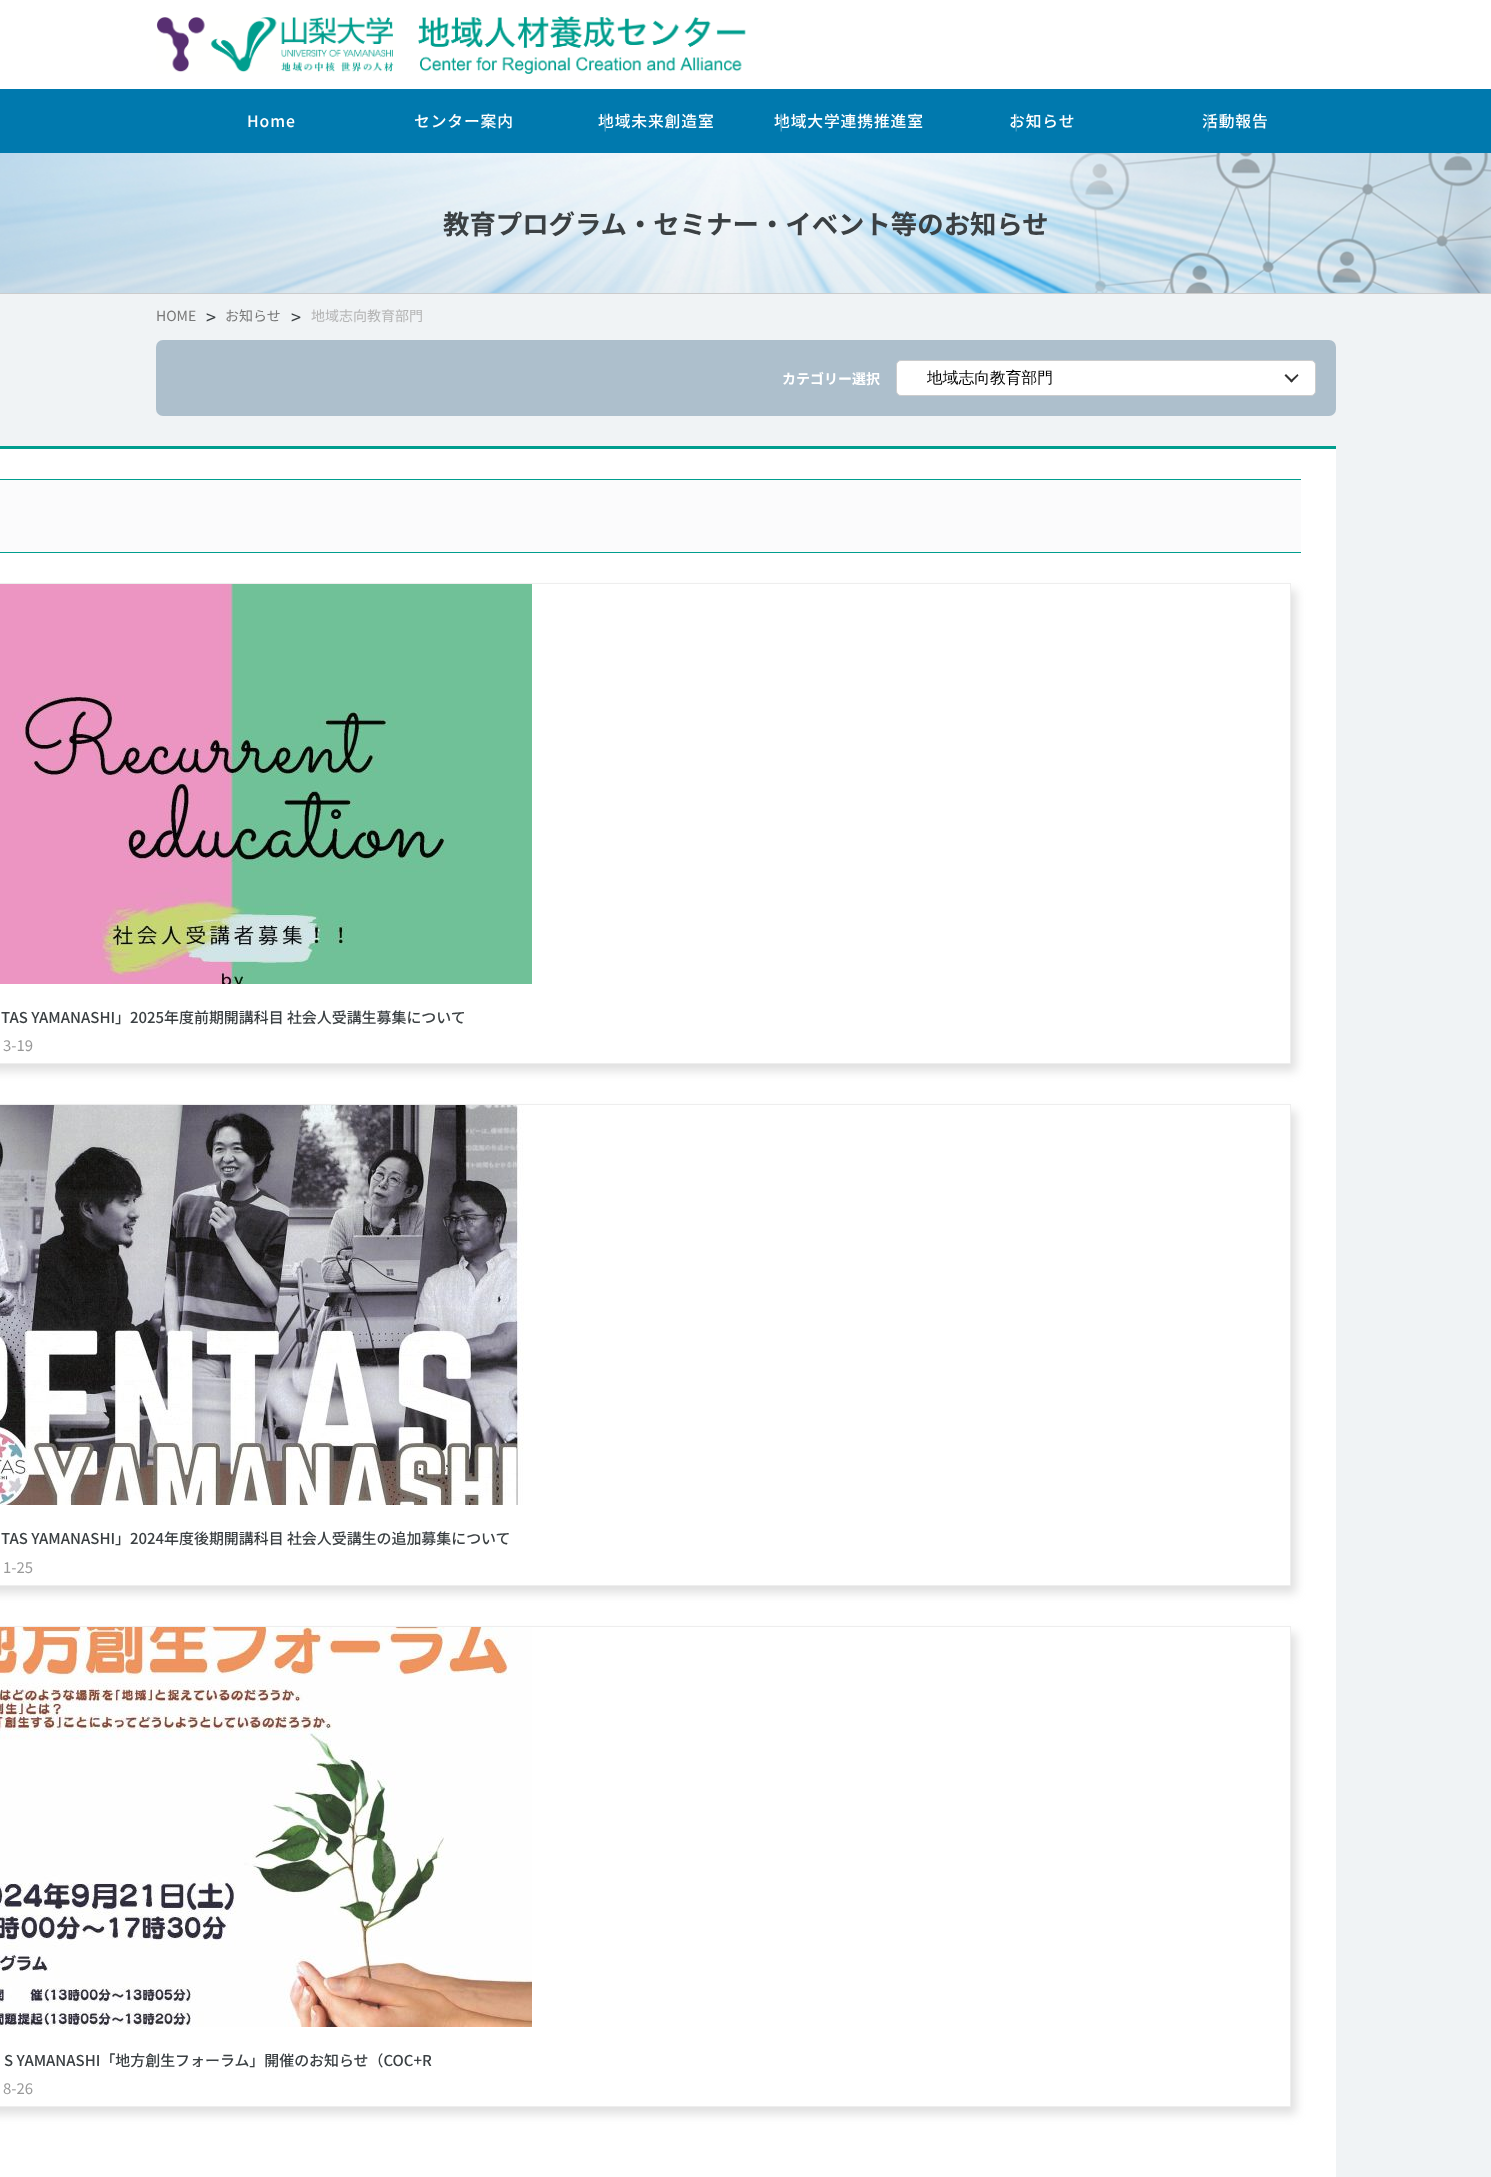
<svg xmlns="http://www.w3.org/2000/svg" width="1491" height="2177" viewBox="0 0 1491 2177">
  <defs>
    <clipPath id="clip1"><path d="M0 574H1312V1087H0ZM-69 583H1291V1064H-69Z" clip-rule="evenodd"/></clipPath>
    <filter id="blur1" x="-50%" y="-200%" width="200%" height="500%"><feGaussianBlur stdDeviation="5"/></filter>
    <clipPath id="clip2"><path d="M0 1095H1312V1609H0ZM-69 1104H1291V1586H-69Z" clip-rule="evenodd"/></clipPath>
    <clipPath id="clip3"><path d="M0 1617H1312V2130H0ZM-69 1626H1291V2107H-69Z" clip-rule="evenodd"/></clipPath>
  </defs>
  <rect width="100%" height="100%" fill="#f0f3f5"/>
  <rect x="0" y="0" width="1491" height="89" fill="#ffffff"/>
  <image x="156" y="16" width="590" height="58" href="img1.png"/>
  <rect x="0" y="89" width="1491" height="64" fill="#0079ae"/>
  <text x="247" y="127" font-family="Noto Sans JP" font-size="15.75" font-weight="500" letter-spacing="0.9" fill="#ffffff">Home</text>
  <text x="414" y="127" font-family="Noto Sans JP" font-size="15.75" font-weight="500" letter-spacing="0.9" fill="#ffffff">センター案内</text>
  <text x="598" y="127" font-family="Noto Sans JP" font-size="15.75" font-weight="500" letter-spacing="0.9" fill="#ffffff">地域未来創造室</text>
  <text x="603" y="127" font-family="Noto Sans JP" font-size="15.75" font-weight="500" letter-spacing="0.9" fill="#5ba9cb">|</text>
  <text x="774" y="127" font-family="Noto Sans JP" font-size="15.75" font-weight="500" letter-spacing="0.9" fill="#ffffff">地域大学連携推進室</text>
  <text x="779" y="127" font-family="Noto Sans JP" font-size="15.75" font-weight="500" letter-spacing="0.9" fill="#5ba9cb">|</text>
  <text x="1009" y="127" font-family="Noto Sans JP" font-size="15.75" font-weight="500" letter-spacing="0.9" fill="#ffffff">お知らせ</text>
  <text x="1014" y="127" font-family="Noto Sans JP" font-size="15.75" font-weight="500" letter-spacing="0.9" fill="#489fc5">|</text>
  <text x="1202" y="127" font-family="Noto Sans JP" font-size="15.75" font-weight="500" letter-spacing="0.9" fill="#ffffff">活動報告</text>
  <text x="1206" y="127" font-family="Noto Sans JP" font-size="15.75" font-weight="500" letter-spacing="0.9" fill="#51a4c8">|</text>
  <image x="0" y="153" width="1491" height="140" href="img2.png"/>
  <rect x="0" y="293" width="1491" height="1" fill="#cccccc"/>
  <text x="443" y="234" font-family="Noto Sans JP" font-size="26.4" font-weight="bold" fill="#3b4043">教育プログラム・セミナー・イベント等のお知らせ</text>
  <text x="156" y="321" font-family="Noto Sans JP" font-size="14" fill="#787878">HOME</text>
  <text x="206" y="324" font-family="Noto Sans JP" font-size="18" fill="#3b4043">&gt;</text>
  <text x="225" y="321" font-family="Noto Sans JP" font-size="14" fill="#787878">お知らせ</text>
  <text x="291" y="324" font-family="Noto Sans JP" font-size="18" fill="#3b4043">&gt;</text>
  <text x="311" y="321" font-family="Noto Sans JP" font-size="14" fill="#b4b4b4">地域志向教育部門</text>
  <rect x="156" y="340" width="1180" height="76" rx="7" fill="#adbfcc"/>
  <text x="782" y="384" font-family="Noto Sans JP" font-size="14" font-weight="bold" fill="#ffffff">カテゴリー選択</text>
  <rect x="896.5" y="360.5" width="419" height="35" rx="4.5" fill="#ffffff" stroke="#cccccc"/>
  <text x="927" y="383" font-family="WenQuanYi Zen Hei" font-size="15.75" font-weight="500" fill="#000000">地域志向教育部門</text>
  <path d="M1297.5 374L1298.5 375.5L1291.5 382.5L1290 381Z" fill="#333333"/>
  <path d="M1286 374L1293 381L1291.5 382.5L1284.5 375.5Z" fill="#333333"/>
  <rect x="0" y="449" width="1336" height="1728" fill="#ffffff"/>
  <rect x="0" y="446" width="1336" height="3" fill="#009e8e"/>
  <rect x="0" y="480" width="1301" height="72" fill="#fbfbfc"/>
  <rect x="0" y="479" width="1301" height="1" fill="#009e8e"/>
  <rect x="0" y="552" width="1301" height="1" fill="#009e8e"/>
  <g clip-path="url(#clip1)">
    <rect x="-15" y="590" width="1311" height="481" fill="#cccccc" fill-opacity="0.6" filter="url(#blur1)"/>
  </g>
  <rect x="-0.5" y="583.5" width="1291" height="480" fill="none" stroke="#eeeeee"/>
  <image x="0" y="584" width="532" height="400" href="img3.png"/>
  <text x="1" y="1023" font-family="Noto Sans JP" font-size="14.95" font-weight="500" fill="#3b4043">TAS YAMANASHI」2025年度前期開講科目 社会人受講生募集について</text>
  <text x="3" y="1051" font-family="Noto Sans JP" font-size="14.95" fill="#999999">3-19</text>
  <g clip-path="url(#clip2)">
    <rect x="-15" y="1111" width="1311" height="482" fill="#cccccc" fill-opacity="0.6" filter="url(#blur1)"/>
  </g>
  <rect x="-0.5" y="1104.5" width="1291" height="481" fill="none" stroke="#eeeeee"/>
  <image x="0" y="1105" width="524" height="400" href="img4.png"/>
  <text x="1" y="1544" font-family="Noto Sans JP" font-size="14.95" font-weight="500" fill="#3b4043">TAS YAMANASHI」2024年度後期開講科目 社会人受講生の追加募集について</text>
  <text x="3" y="1573" font-family="Noto Sans JP" font-size="14.95" fill="#999999">1-25</text>
  <g clip-path="url(#clip3)">
    <rect x="-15" y="1633" width="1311" height="481" fill="#cccccc" fill-opacity="0.6" filter="url(#blur1)"/>
  </g>
  <rect x="-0.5" y="1626.5" width="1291" height="480" fill="none" stroke="#eeeeee"/>
  <image x="0" y="1627" width="532" height="400" href="img5.png"/>
  <text x="4" y="2066" font-family="Noto Sans JP" font-size="14.95" font-weight="500" fill="#3b4043">S YAMANASHI「地方創生フォーラム」開催のお知らせ（COC+R</text>
  <text x="3" y="2094" font-family="Noto Sans JP" font-size="14.95" fill="#999999">8-26</text>
</svg>
